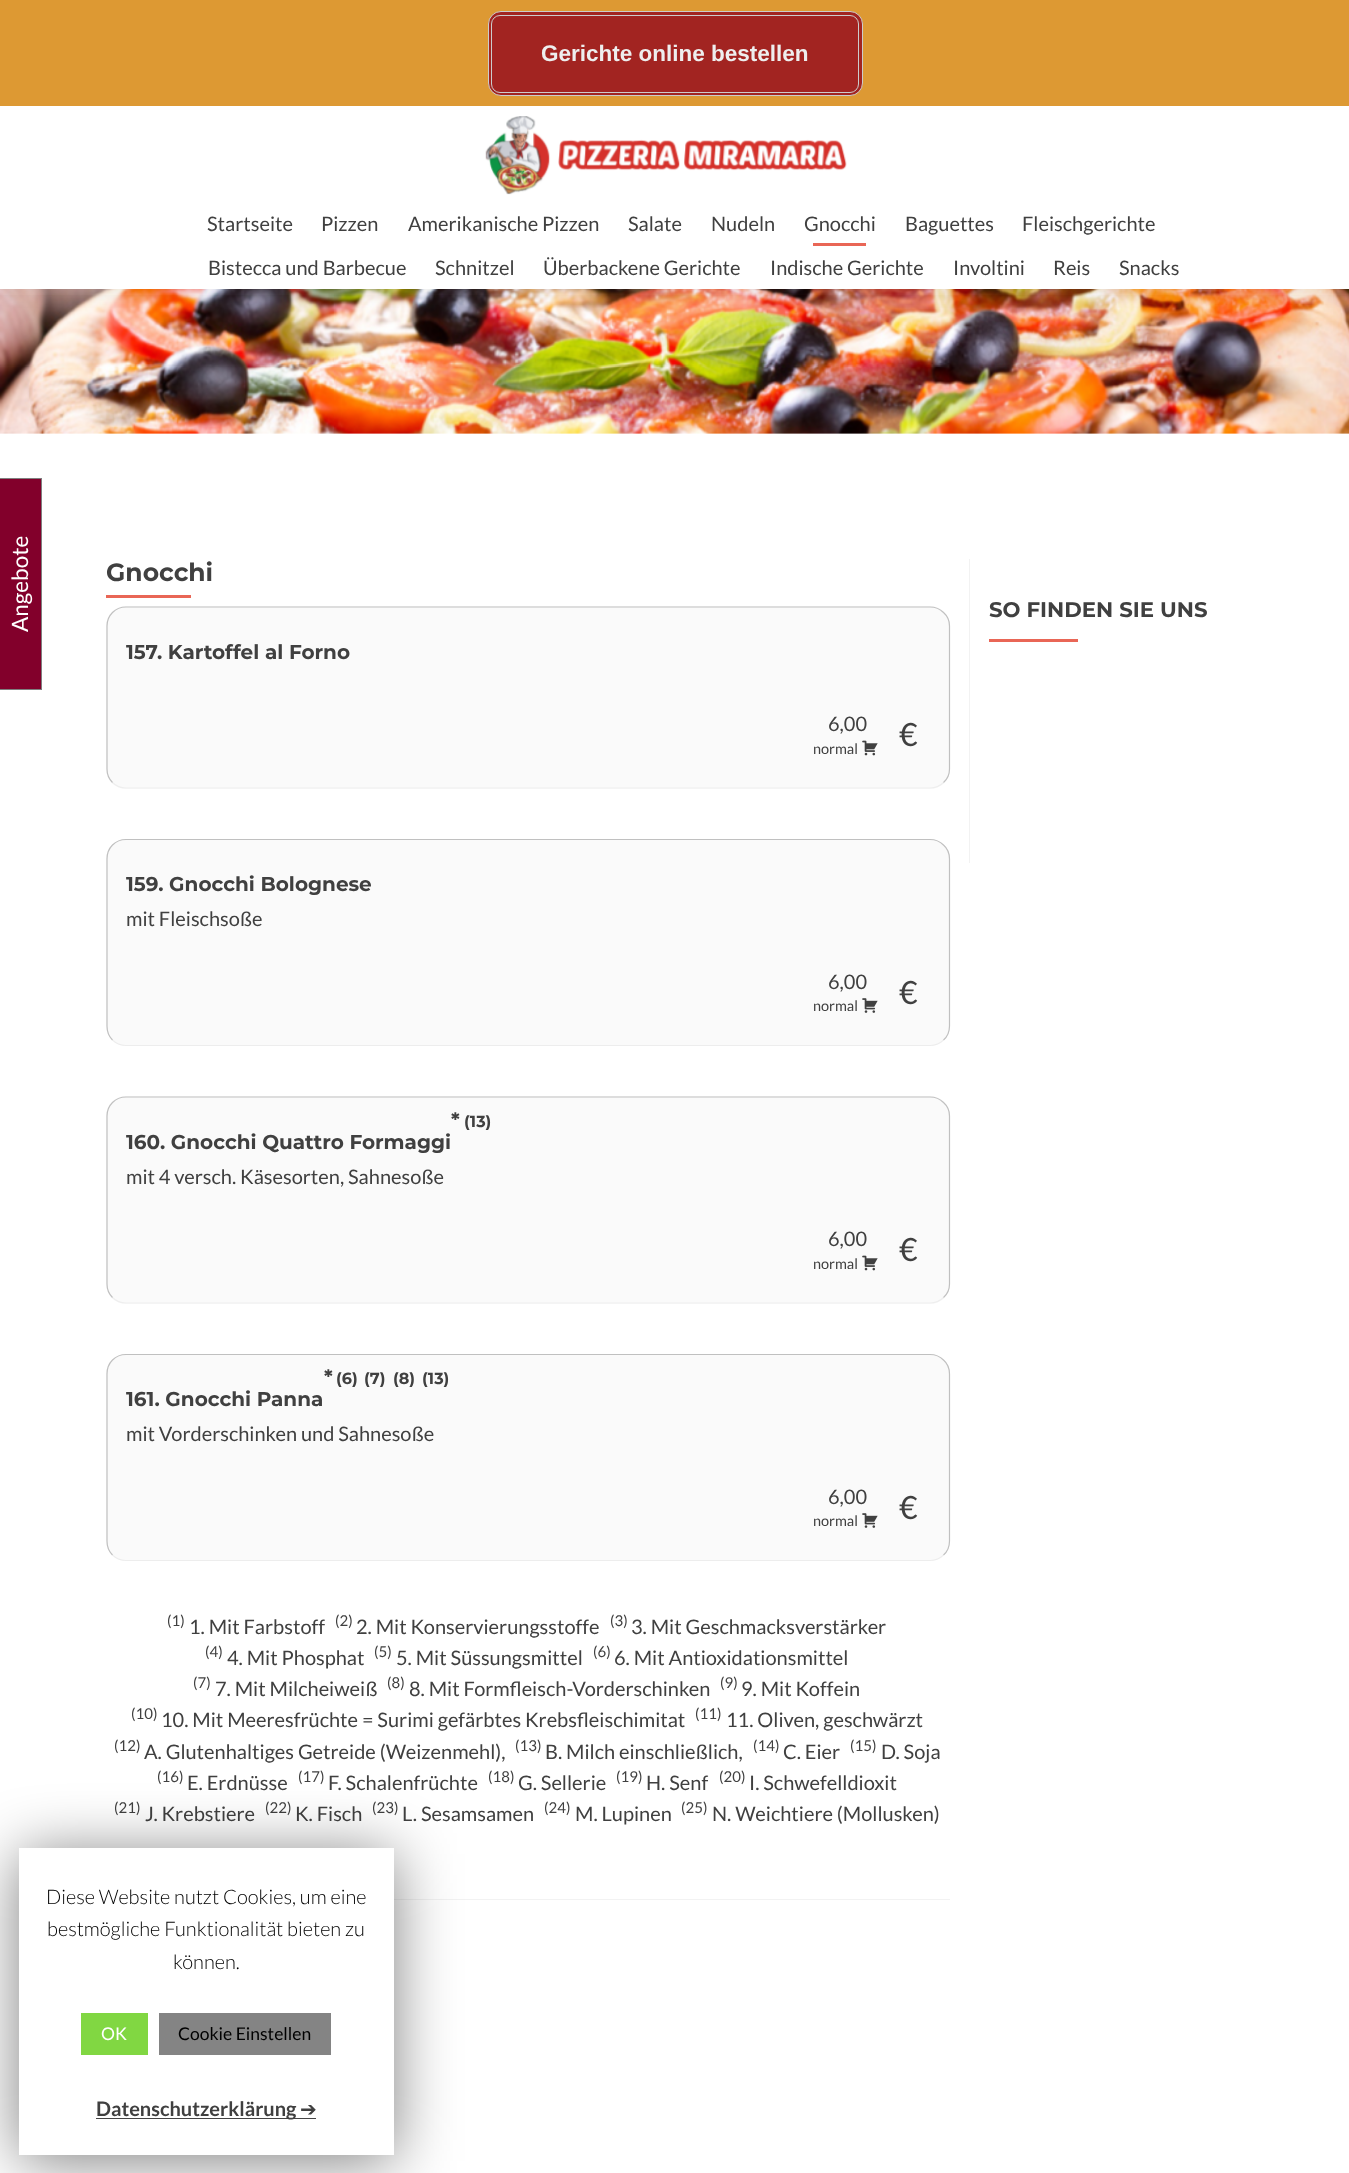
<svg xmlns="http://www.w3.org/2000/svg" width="1349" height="2173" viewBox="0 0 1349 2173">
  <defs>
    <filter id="blur1" x="-50%" y="-200%" width="200%" height="500%"><feGaussianBlur stdDeviation="7"/></filter>
    <filter id="blur2" x="-50%" y="-200%" width="200%" height="500%"><feGaussianBlur stdDeviation="31"/></filter>
  </defs>
  <rect width="100%" height="100%" fill="#ffffff"/>
  <image x="0" y="289" width="1349" height="145" href="img2.png"/>
  <rect x="0" y="113" width="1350" height="182" fill="#323232" fill-opacity="0.08" filter="url(#blur1)"/>
  <rect x="0" y="0" width="1349" height="106" fill="#dd9933"/>
  <rect x="488.5" y="11.5" width="374" height="84" rx="12.5" fill="#a22421" stroke="#cccccc"/>
  <rect x="491.5" y="15.5" width="367" height="77" rx="8.5" fill="none" stroke="#cccccc"/>
  <text x="541" y="61" font-family="Liberation Sans" font-size="22.5" font-weight="bold" fill="#eeeeee">Gerichte online bestellen</text>
  <rect x="0" y="106" width="1349" height="183" fill="#ffffff"/>
  <image x="485" y="116" width="362" height="79" href="img1.png"/>
  <text x="207" y="231" font-family="Lato" font-size="20" fill="#404040">Startseite</text>
  <text x="321" y="231" font-family="Lato" font-size="20" fill="#404040">Pizzen</text>
  <text x="408" y="231" font-family="Lato" font-size="20" fill="#404040">Amerikanische Pizzen</text>
  <text x="628" y="231" font-family="Lato" font-size="20" fill="#404040">Salate</text>
  <text x="711" y="231" font-family="Lato" font-size="20" fill="#404040">Nudeln</text>
  <text x="804" y="231" font-family="Lato" font-size="20" fill="#404040">Gnocchi</text>
  <rect x="813" y="243" width="53" height="3" fill="#e96656"/>
  <text x="905" y="231" font-family="Lato" font-size="20" fill="#404040">Baguettes</text>
  <text x="1022" y="231" font-family="Lato" font-size="20" fill="#404040">Fleischgerichte</text>
  <text x="208" y="275" font-family="Lato" font-size="20" fill="#404040">Bistecca und Barbecue</text>
  <text x="435" y="275" font-family="Lato" font-size="20" fill="#404040">Schnitzel</text>
  <text x="543" y="275" font-family="Lato" font-size="20" fill="#404040">Überbackene Gerichte</text>
  <text x="770" y="275" font-family="Lato" font-size="20" fill="#404040">Indische Gerichte</text>
  <text x="953" y="275" font-family="Lato" font-size="20" fill="#404040">Involtini</text>
  <text x="1053" y="275" font-family="Lato" font-size="20" fill="#404040">Reis</text>
  <text x="1119" y="275" font-family="Lato" font-size="20" fill="#404040">Snacks</text>
  <rect x="0" y="479" width="41" height="210" fill="#82002b"/>
  <rect x="0" y="478" width="42" height="1" fill="#7f7f7f"/>
  <rect x="41" y="478" width="1" height="212" fill="#7f7f7f"/>
  <rect x="0" y="689" width="42" height="1" fill="#7f7f7f"/>
  <text x="28" y="632" transform="rotate(-90 28 632)" font-family="Lato" font-size="22.5" fill="#ffffff">Angebote</text>
  <rect x="394" y="1899" width="556" height="1" fill="#f2f2f2"/>
  <text x="106" y="581" font-family="Montserrat" font-size="25" font-weight="100" fill="#404040">Gnocchi</text>
  <rect x="106" y="595" width="85" height="3" fill="#e96656"/>
  <rect x="106" y="606" width="844" height="183" rx="20" fill="#fafafa"/>
  <path d="M943.5 782.5C940 786 935 788 930 788H126C121 788 116 786 112.5 782.5" fill="none" stroke="#eeeeee" stroke-width="1.2"/>
  <path d="M112.5 782.5C109 779 107 774 107 769V626C107 621 109 616 112.5 612.5C116 609 121 607 126 607H930C935 607 940 609 943.5 612.5C947.5 616 949.5 621 949.5 626V769C949.5 774 947.5 779 943.5 782.5" fill="none" stroke="#c0c0c0" stroke-width="1.2"/>
  <text x="126" y="659" font-family="Montserrat" font-size="20" font-weight="100" fill="#404040">157. Kartoffel al Forno</text>
  <text x="828" y="731" font-family="Lato" font-size="20" fill="#404040">6,00</text>
  <text x="813" y="754" font-family="Lato" font-size="14.5" fill="#404040">normal</text>
  <image x="862" y="740" width="16" height="16" href="img3.png"/>
  <text x="899" y="746" font-family="Lato" font-size="32" fill="#404040">€</text>
  <rect x="106" y="839" width="844" height="207" rx="20" fill="#fafafa"/>
  <path d="M943.5 1040C940 1043.5 935 1045.5 930 1045.5H126C121 1045.5 116 1043.5 112.5 1040" fill="none" stroke="#000000" stroke-opacity="0.05" stroke-width="1.2"/>
  <path d="M112.5 1040C109 1036.5 107 1031.5 107 1026V859C107 853.5 109 848.5 112.5 845C116 841.5 121 839.5 126 839.5H930C935 839.5 940 841.5 943.5 845C947.5 848.5 949.5 853.5 949.5 859V1026C949.5 1031.5 947.5 1036.5 943.5 1040" fill="none" stroke="#c0c0c0" stroke-width="1.2"/>
  <text x="126" y="891" font-family="Montserrat" font-size="20" font-weight="100" fill="#404040">159. Gnocchi Bolognese</text>
  <text x="126" y="926" font-family="Lato" font-size="20" fill="#404040">mit Fleischsoße</text>
  <text x="828" y="989" font-family="Lato" font-size="20" fill="#404040">6,00</text>
  <text x="813" y="1011" font-family="Lato" font-size="14.5" fill="#404040">normal</text>
  <image x="862" y="998" width="16" height="15" href="img4.png"/>
  <text x="899" y="1004" font-family="Lato" font-size="32" fill="#404040">€</text>
  <rect x="106" y="1096" width="844" height="208" rx="20" fill="#fafafa"/>
  <path d="M943.5 1297.5C940 1301 935 1303 930 1303H126C121 1303 116 1301 112.5 1297.5" fill="none" stroke="#eeeeee" stroke-width="1.2"/>
  <path d="M112.5 1297.5C109 1294 107 1289 107 1284V1116C107 1111 109 1106 112.5 1102.5C116 1099 121 1097 126 1097H930C935 1097 940 1099 943.5 1102.5C947.5 1106 949.5 1111 949.5 1116V1284C949.5 1289 947.5 1294 943.5 1297.5" fill="none" stroke="#c0c0c0" stroke-width="1.2"/>
  <text x="451" y="1127" font-family="Montserrat" font-size="20" font-weight="100" fill="#404040">*</text>
  <text x="464" y="1127" font-family="Montserrat" font-size="16" font-weight="100" fill="#404040">(13)</text>
  <text x="126" y="1149" font-family="Montserrat" font-size="20" font-weight="100" fill="#404040">160. Gnocchi Quattro Formaggi</text>
  <text x="126" y="1184" font-family="Lato" font-size="20" fill="#404040">mit 4 versch. Käsesorten, Sahnesoße</text>
  <text x="828" y="1246" font-family="Lato" font-size="20" fill="#404040">6,00</text>
  <text x="813" y="1269" font-family="Lato" font-size="14.5" fill="#404040">normal</text>
  <image x="862" y="1255" width="16" height="16" href="img3.png"/>
  <text x="899" y="1261" font-family="Lato" font-size="32" fill="#404040">€</text>
  <rect x="106" y="1354" width="844" height="207" rx="20" fill="#fafafa"/>
  <path d="M943.5 1555C940 1558.5 935 1560.5 930 1560.5H126C121 1560.5 116 1558.5 112.5 1555" fill="none" stroke="#000000" stroke-opacity="0.05" stroke-width="1.2"/>
  <path d="M112.5 1555C109 1551.5 107 1546.5 107 1541V1374C107 1368.5 109 1363.5 112.5 1360C116 1356.5 121 1354.5 126 1354.5H930C935 1354.5 940 1356.5 943.5 1360C947.5 1363.5 949.5 1368.5 949.5 1374V1541C949.5 1546.5 947.5 1551.5 943.5 1555" fill="none" stroke="#c0c0c0" stroke-width="1.2"/>
  <text x="324" y="1384" font-family="Montserrat" font-size="20" font-weight="100" fill="#404040">*</text>
  <text x="336" y="1384" font-family="Montserrat" font-size="16" font-weight="100" fill="#404040">(6)</text>
  <text x="364" y="1384" font-family="Montserrat" font-size="16" font-weight="100" fill="#404040">(7)</text>
  <text x="393" y="1384" font-family="Montserrat" font-size="16" font-weight="100" fill="#404040">(8)</text>
  <text x="422" y="1384" font-family="Montserrat" font-size="16" font-weight="100" fill="#404040">(13)</text>
  <text x="126" y="1406" font-family="Montserrat" font-size="20" font-weight="100" fill="#404040">161. Gnocchi Panna</text>
  <text x="126" y="1441" font-family="Lato" font-size="20" fill="#404040">mit Vorderschinken und Sahnesoße</text>
  <text x="828" y="1504" font-family="Lato" font-size="20" fill="#404040">6,00</text>
  <text x="813" y="1526" font-family="Lato" font-size="14.5" fill="#404040">normal</text>
  <image x="862" y="1513" width="16" height="15" href="img4.png"/>
  <text x="899" y="1519" font-family="Lato" font-size="32" fill="#404040">€</text>
  <text x="167" y="1626" font-family="Lato" font-size="15" fill="#404040">(1)</text>
  <text x="189" y="1634" font-family="Lato" font-size="20" fill="#404040">1. Mit Farbstoff</text>
  <text x="335" y="1626" font-family="Lato" font-size="15" fill="#404040">(2)</text>
  <text x="356" y="1634" font-family="Lato" font-size="20" fill="#404040">2. Mit Konservierungsstoffe</text>
  <text x="610" y="1626" font-family="Lato" font-size="15" fill="#404040">(3)</text>
  <text x="631" y="1634" font-family="Lato" font-size="20" fill="#404040">3. Mit Geschmacksverstärker</text>
  <text x="205" y="1657" font-family="Lato" font-size="15" fill="#404040">(4)</text>
  <text x="227" y="1665" font-family="Lato" font-size="20" fill="#404040">4. Mit Phosphat</text>
  <text x="374" y="1657" font-family="Lato" font-size="15" fill="#404040">(5)</text>
  <text x="396" y="1665" font-family="Lato" font-size="20" fill="#404040">5. Mit Süssungsmittel</text>
  <text x="593" y="1657" font-family="Lato" font-size="15" fill="#404040">(6)</text>
  <text x="614" y="1665" font-family="Lato" font-size="20" fill="#404040">6. Mit Antioxidationsmittel</text>
  <text x="193" y="1688" font-family="Lato" font-size="15" fill="#404040">(7)</text>
  <text x="215" y="1696" font-family="Lato" font-size="20" fill="#404040">7. Mit Milcheiweiß</text>
  <text x="387" y="1688" font-family="Lato" font-size="15" fill="#404040">(8)</text>
  <text x="409" y="1696" font-family="Lato" font-size="20" fill="#404040">8. Mit Formfleisch-Vorderschinken</text>
  <text x="720" y="1688" font-family="Lato" font-size="15" fill="#404040">(9)</text>
  <text x="741" y="1696" font-family="Lato" font-size="20" fill="#404040">9. Mit Koffein</text>
  <text x="131" y="1719" font-family="Lato" font-size="15" fill="#404040">(10)</text>
  <text x="161" y="1727" font-family="Lato" font-size="20" fill="#404040">10. Mit Meeresfrüchte = Surimi gefärbtes Krebsfleischimitat</text>
  <text x="695" y="1719" font-family="Lato" font-size="15" fill="#404040">(11)</text>
  <text x="726" y="1727" font-family="Lato" font-size="20" fill="#404040">11. Oliven, geschwärzt</text>
  <text x="114" y="1751" font-family="Lato" font-size="15" fill="#404040">(12)</text>
  <text x="144" y="1759" font-family="Lato" font-size="20" fill="#404040">A. Glutenhaltiges Getreide (Weizenmehl),</text>
  <text x="515" y="1751" font-family="Lato" font-size="15" fill="#404040">(13)</text>
  <text x="545" y="1759" font-family="Lato" font-size="20" fill="#404040">B. Milch einschließlich,</text>
  <text x="753" y="1751" font-family="Lato" font-size="15" fill="#404040">(14)</text>
  <text x="783" y="1759" font-family="Lato" font-size="20" fill="#404040">C. Eier</text>
  <text x="850" y="1751" font-family="Lato" font-size="15" fill="#404040">(15)</text>
  <text x="881" y="1759" font-family="Lato" font-size="20" fill="#404040">D. Soja</text>
  <text x="157" y="1782" font-family="Lato" font-size="15" fill="#404040">(16)</text>
  <text x="187" y="1790" font-family="Lato" font-size="20" fill="#404040">E. Erdnüsse</text>
  <text x="298" y="1782" font-family="Lato" font-size="15" fill="#404040">(17)</text>
  <text x="328" y="1790" font-family="Lato" font-size="20" fill="#404040">F. Schalenfrüchte</text>
  <text x="488" y="1782" font-family="Lato" font-size="15" fill="#404040">(18)</text>
  <text x="518" y="1790" font-family="Lato" font-size="20" fill="#404040">G. Sellerie</text>
  <text x="616" y="1782" font-family="Lato" font-size="15" fill="#404040">(19)</text>
  <text x="646" y="1790" font-family="Lato" font-size="20" fill="#404040">H. Senf</text>
  <text x="719" y="1782" font-family="Lato" font-size="15" fill="#404040">(20)</text>
  <text x="749" y="1790" font-family="Lato" font-size="20" fill="#404040">I. Schwefelldioxit</text>
  <text x="114" y="1813" font-family="Lato" font-size="15" fill="#404040">(21)</text>
  <text x="145" y="1821" font-family="Lato" font-size="20" fill="#404040">J. Krebstiere</text>
  <text x="265" y="1813" font-family="Lato" font-size="15" fill="#404040">(22)</text>
  <text x="295" y="1821" font-family="Lato" font-size="20" fill="#404040">K. Fisch</text>
  <text x="372" y="1813" font-family="Lato" font-size="15" fill="#404040">(23)</text>
  <text x="402" y="1821" font-family="Lato" font-size="20" fill="#404040">L. Sesamsamen</text>
  <text x="544" y="1813" font-family="Lato" font-size="15" fill="#404040">(24)</text>
  <text x="575" y="1821" font-family="Lato" font-size="20" fill="#404040">M. Lupinen</text>
  <text x="681" y="1813" font-family="Lato" font-size="15" fill="#404040">(25)</text>
  <text x="712" y="1821" font-family="Lato" font-size="20" fill="#404040">N. Weichtiere (Mollusken)</text>
  <rect x="969" y="559" width="1" height="304" fill="#f2f2f2"/>
  <text x="989" y="617" font-family="Montserrat" font-size="21.25" font-weight="100" fill="#404040">SO FINDEN SIE UNS</text>
  <rect x="989" y="639" width="89" height="3" fill="#e96656"/>
  <rect x="19" y="1854" width="375" height="307" fill="#000000" fill-opacity="0.5" filter="url(#blur2)"/>
  <rect x="19" y="1848" width="375" height="307" fill="#ffffff"/>
  <text x="46" y="1904" font-family="Lato" font-size="20" font-weight="300" fill="#000000">Diese Website nutzt Cookies, um eine</text>
  <text x="47" y="1936" font-family="Lato" font-size="20" font-weight="300" fill="#000000">bestmögliche Funktionalität bieten zu</text>
  <text x="173" y="1969" font-family="Lato" font-size="20" font-weight="300" fill="#000000">können.</text>
  <rect x="81" y="2013" width="67" height="42" fill="#81d742"/>
  <text x="101" y="2040" font-family="Lato" font-size="17.5" fill="#ffffff">OK</text>
  <rect x="159" y="2013" width="172" height="42" fill="#848484"/>
  <text x="178" y="2040" font-family="Lato" font-size="17.5" fill="#000000">Cookie Einstellen</text>
  <rect x="96" y="2118" width="220" height="1" fill="#444444"/>
  <text x="96" y="2116" font-family="Lato" font-size="20" font-weight="bold" fill="#404040">Datenschutzerklärung</text>
  <text x="300" y="2116" font-family="DejaVu Sans" font-size="20" fill="#404040">➔</text>
</svg>
